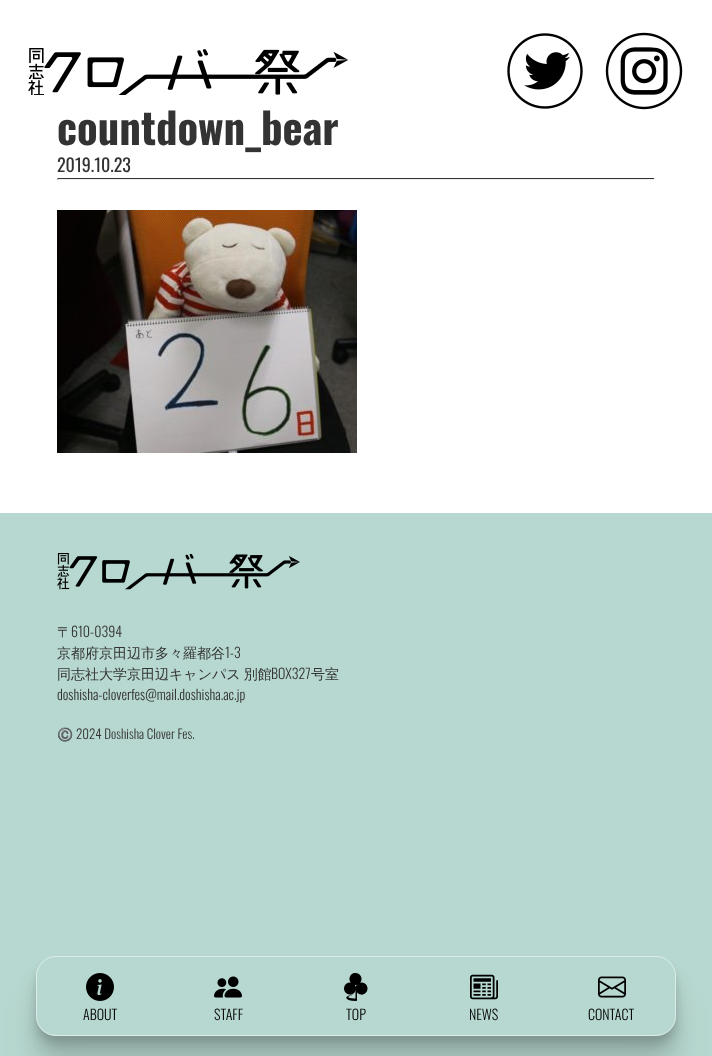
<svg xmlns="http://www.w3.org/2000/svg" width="712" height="1056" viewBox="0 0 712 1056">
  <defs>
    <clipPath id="clip1"><path d="M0 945H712V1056H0ZM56 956H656C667 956 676 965 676 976V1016C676 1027 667 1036 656 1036H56C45 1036 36 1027 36 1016V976C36 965 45 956 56 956Z" clip-rule="evenodd"/></clipPath>
    <filter id="blur1" x="-50%" y="-200%" width="200%" height="500%"><feGaussianBlur stdDeviation="37"/></filter>
    <clipPath id="clip2"><path d="M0 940H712V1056H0ZM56 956H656C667 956 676 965 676 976V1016C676 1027 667 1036 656 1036H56C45 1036 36 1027 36 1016V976C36 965 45 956 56 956Z" clip-rule="evenodd"/></clipPath>
    <filter id="blur2" x="-50%" y="-200%" width="200%" height="500%"><feGaussianBlur stdDeviation="17.5"/></filter>
    <clipPath id="clip3"><path d="M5 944H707V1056H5ZM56 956H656C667 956 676 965 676 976V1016C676 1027 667 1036 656 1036H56C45 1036 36 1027 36 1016V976C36 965 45 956 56 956Z" clip-rule="evenodd"/></clipPath>
    <filter id="blur3" x="-50%" y="-200%" width="200%" height="500%"><feGaussianBlur stdDeviation="10"/></filter>
    <clipPath id="clip4"><path d="M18 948H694V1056H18ZM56 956H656C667 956 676 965 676 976V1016C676 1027 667 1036 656 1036H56C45 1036 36 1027 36 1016V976C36 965 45 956 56 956Z" clip-rule="evenodd"/></clipPath>
    <filter id="blur4" x="-50%" y="-200%" width="200%" height="500%"><feGaussianBlur stdDeviation="5.5"/></filter>
    <clipPath id="clip5"><path d="M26 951H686V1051H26ZM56 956H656C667 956 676 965 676 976V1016C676 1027 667 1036 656 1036H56C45 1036 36 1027 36 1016V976C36 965 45 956 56 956Z" clip-rule="evenodd"/></clipPath>
    <filter id="blur5" x="-50%" y="-200%" width="200%" height="500%"><feGaussianBlur stdDeviation="3"/></filter>
  </defs>
  <rect width="100%" height="100%" fill="#b7d8d0"/>
  <rect x="0" y="0" width="712" height="513" fill="#ffffff"/>
  <image x="28" y="48" width="321" height="47" href="img1.png"/>
  <image x="507" y="33" width="76" height="76" href="img2.png"/>
  <image x="605" y="32" width="78" height="78" href="img3.png"/>
  <text x="57" y="145" font-family="Oswald" font-size="42.75" font-weight="bold" fill="#333333">countdown_bear</text>
  <text x="57" y="172" font-family="Oswald" font-size="18" fill="#333333">2019.10.23</text>
  <rect x="57" y="178" width="598" height="1" fill="#333333"/>
  <rect x="654" y="178" width="1" height="2" fill="#eeeeee"/>
  <rect x="57" y="179" width="598" height="1" fill="#eeeeee"/>
  <rect x="57" y="178" width="1" height="2" fill="#9f9f9f"/>
  <image x="57" y="210" width="300" height="243" href="img4.png"/>
  <image x="57" y="553" width="243" height="37" href="img5.png"/>
  <text x="57" y="637" font-family="WenQuanYi Zen Hei" font-size="14" font-weight="500" fill="#333333">〒</text>
  <text x="71" y="637" font-family="Oswald" font-size="14" font-weight="300" fill="#333333">610-0394</text>
  <text x="57" y="658" font-family="WenQuanYi Zen Hei" font-size="14" font-weight="500" fill="#333333">京都府京田辺市多々羅都谷</text>
  <text x="225" y="658" font-family="Oswald" font-size="14" font-weight="300" fill="#333333">1-3</text>
  <text x="57" y="679" word-spacing="-1" font-family="WenQuanYi Zen Hei" font-size="14" font-weight="500" fill="#333333">同志社大学京田辺キャンパス 別館</text>
  <text x="271" y="679" font-family="Oswald" font-size="14" font-weight="300" fill="#333333">BOX327</text>
  <text x="311" y="679" font-family="WenQuanYi Zen Hei" font-size="14" font-weight="500" fill="#333333">号室</text>
  <text x="57" y="700" font-family="Oswald" font-size="14" font-weight="300" fill="#333333">doshisha-cloverfes@mail.doshisha.ac.jp</text>
  <text x="57" y="739" font-family="Noto Color Emoji" font-size="13" fill="#333333">©️</text>
  <text x="76" y="739" font-family="Oswald" font-size="13" font-weight="300" fill="#333333">2024 Doshisha Clover Fes.</text>
  <g clip-path="url(#clip1)">
    <rect x="36" y="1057" width="640" height="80" rx="20" fill="#000000" fill-opacity="0.13" filter="url(#blur1)"/>
  </g>
  <g clip-path="url(#clip2)">
    <rect x="36" y="994" width="640" height="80" rx="20" fill="#000000" fill-opacity="0.1" filter="url(#blur2)"/>
  </g>
  <g clip-path="url(#clip3)">
    <rect x="36" y="975" width="640" height="80" rx="20" fill="#000000" fill-opacity="0.09" filter="url(#blur3)"/>
  </g>
  <g clip-path="url(#clip4)">
    <rect x="36" y="966" width="640" height="80" rx="20" fill="#000000" fill-opacity="0.09" filter="url(#blur4)"/>
  </g>
  <g clip-path="url(#clip5)">
    <rect x="36" y="961" width="640" height="80" rx="20" fill="#000000" fill-opacity="0.07" filter="url(#blur5)"/>
  </g>
  <rect x="36.5" y="956.5" width="639" height="79" rx="19.5" fill="none" stroke="#ffffff" stroke-opacity="0.5"/>
  <image x="86" y="973" width="28" height="28" href="img6.png"/>
  <text x="83" y="1020" font-family="Oswald" font-size="14" font-weight="300" fill="#000000">ABOUT</text>
  <image x="214" y="976" width="28" height="22" href="img7.png"/>
  <text x="214" y="1020" font-family="Oswald" font-size="14" font-weight="300" fill="#000000">STAFF</text>
  <image x="344" y="973" width="24" height="28" href="img8.png"/>
  <text x="346" y="1020" font-family="Oswald" font-size="14" font-weight="300" fill="#000000">TOP</text>
  <image x="470" y="974" width="28" height="26" href="img9.png"/>
  <text x="469" y="1020" font-family="Oswald" font-size="14" font-weight="300" fill="#000000">NEWS</text>
  <image x="598" y="976" width="28" height="22" href="img10.png"/>
  <text x="588" y="1020" font-family="Oswald" font-size="14" font-weight="300" fill="#000000">CONTACT</text>
</svg>
